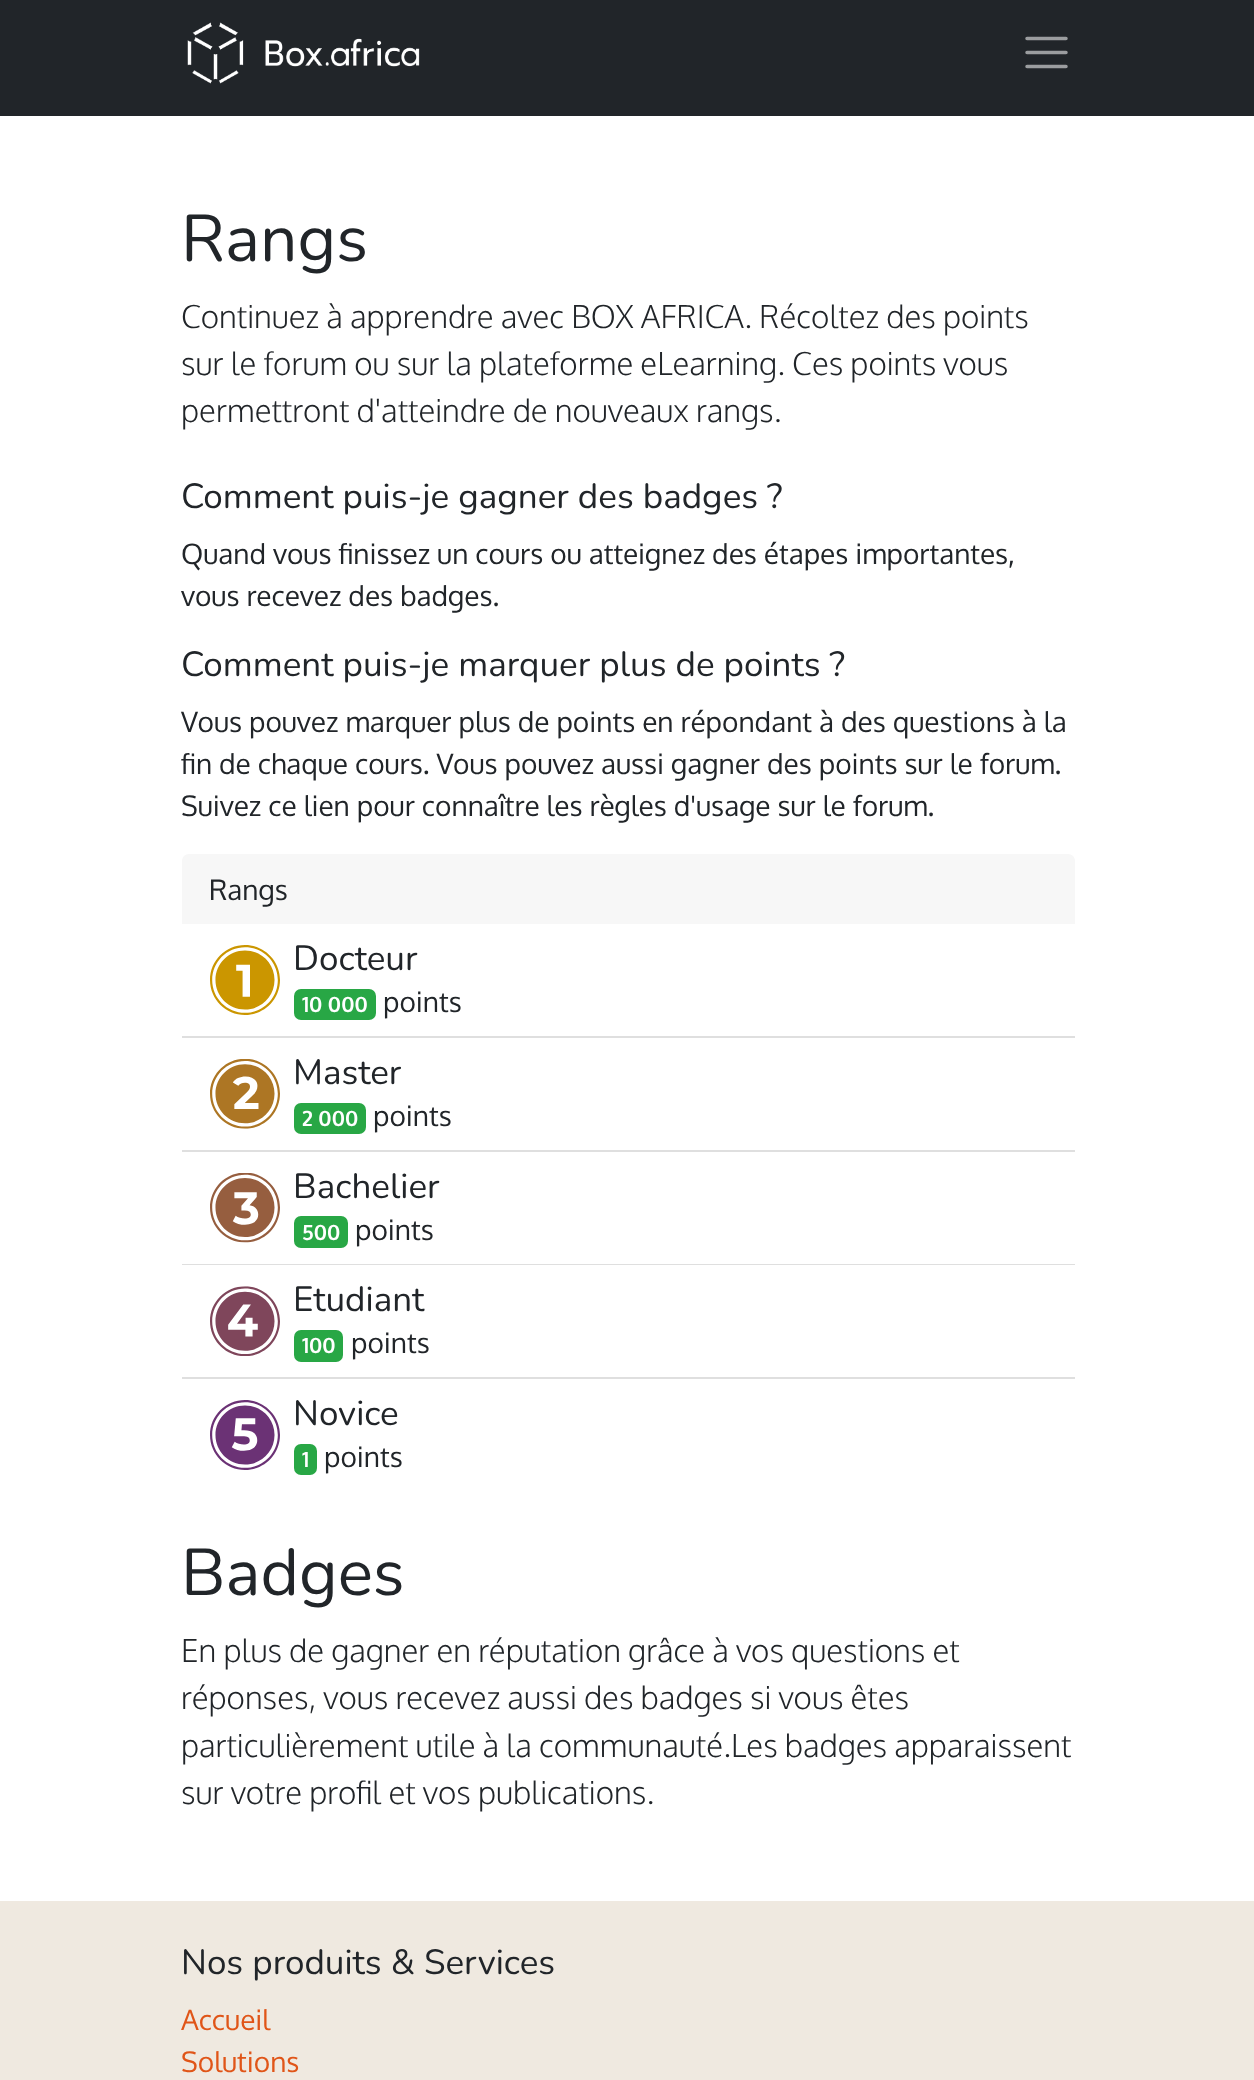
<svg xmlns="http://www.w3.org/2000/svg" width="1254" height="2080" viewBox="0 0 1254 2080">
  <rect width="100%" height="100%" fill="#ffffff"/>
  <rect x="0" y="0" width="1254" height="116" fill="#212529"/>
  <image x="187" y="22" width="233" height="62" href="img1.png"/>
  <path d="M1027 38.5H1066M1027 52.5H1066M1027 66.5H1066" fill="none" stroke="#9b9d9f" stroke-width="3.5" stroke-linecap="round"/>
  <text x="181" y="261" font-family="Nunito" font-size="66" fill="#212529">Rangs</text>
  <text x="181" y="328" font-family="Oxygen" font-size="31.5" font-weight="300" fill="#212529">Continuez à apprendre avec BOX AFRICA. Récoltez des points</text>
  <text x="181" y="375" font-family="Oxygen" font-size="31.5" font-weight="300" fill="#212529">sur le forum ou sur la plateforme eLearning. Ces points vous</text>
  <text x="181" y="422" font-family="Oxygen" font-size="31.5" font-weight="300" fill="#212529">permettront d'atteindre de nouveaux rangs.</text>
  <text x="181" y="508" font-family="Nunito" font-size="35" fill="#212529">Comment puis-je gagner des badges ?</text>
  <text x="181" y="564" font-family="Oxygen" font-size="28" fill="#212529">Quand vous finissez un cours ou atteignez des étapes importantes,</text>
  <text x="181" y="606" font-family="Oxygen" font-size="28" fill="#212529">vous recevez des badges.</text>
  <text x="181" y="676" font-family="Nunito" font-size="35" fill="#212529">Comment puis-je marquer plus de points ?</text>
  <text x="181" y="732" font-family="Oxygen" font-size="28" fill="#212529">Vous pouvez marquer plus de points en répondant à des questions à la</text>
  <text x="181" y="774" font-family="Oxygen" font-size="28" fill="#212529">fin de chaque cours. Vous pouvez aussi gagner des points sur le forum.</text>
  <text x="181" y="816" font-family="Oxygen" font-size="28" fill="#212529">Suivez ce lien pour connaître les règles d'usage sur le forum.</text>
  <path d="M189 854H1068C1072 854 1075 857 1075 861V924H182V861C182 857 185 854 189 854Z" fill="#f7f7f7"/>
  <text x="209" y="900" font-family="Oxygen" font-size="28" fill="#212529">Rangs</text>
  <rect x="182" y="1036" width="893" height="2" fill="#dfdfdf"/>
  <image x="210" y="945" width="70" height="70" href="img2.png"/>
  <text x="293" y="970" font-family="Nunito" font-size="35" fill="#212529">Docteur</text>
  <rect x="294" y="989" width="82" height="31" rx="7" fill="#28a745"/>
  <text x="302" y="1012" font-family="Oxygen" font-size="21" font-weight="bold" fill="#ffffff">10 000</text>
  <text x="383" y="1012" font-family="Oxygen" font-size="28" fill="#212529">points</text>
  <rect x="182" y="1150" width="893" height="2" fill="#dfdfdf"/>
  <image x="210" y="1059" width="70" height="70" href="img3.png"/>
  <text x="293" y="1084" font-family="Nunito" font-size="35" fill="#212529">Master</text>
  <rect x="294" y="1103" width="72" height="31" rx="7" fill="#28a745"/>
  <text x="302" y="1126" font-family="Oxygen" font-size="21" font-weight="bold" fill="#ffffff">2 000</text>
  <text x="373" y="1126" font-family="Oxygen" font-size="28" fill="#212529">points</text>
  <rect x="182" y="1264" width="893" height="1" fill="#dfdfdf"/>
  <image x="210" y="1173" width="70" height="70" href="img4.png"/>
  <text x="293" y="1198" font-family="Nunito" font-size="35" fill="#212529">Bachelier</text>
  <rect x="294" y="1216" width="54" height="32" rx="7" fill="#28a745"/>
  <text x="302" y="1240" font-family="Oxygen" font-size="21" font-weight="bold" fill="#ffffff">500</text>
  <text x="355" y="1240" font-family="Oxygen" font-size="28" fill="#212529">points</text>
  <rect x="182" y="1377" width="893" height="2" fill="#dfdfdf"/>
  <image x="210" y="1286" width="70" height="70" href="img5.png"/>
  <text x="293" y="1311" font-family="Nunito" font-size="35" fill="#212529">Etudiant</text>
  <rect x="294" y="1330" width="49" height="32" rx="7" fill="#28a745"/>
  <text x="302" y="1353" font-family="Oxygen" font-size="21" font-weight="bold" fill="#ffffff">100</text>
  <text x="351" y="1353" font-family="Oxygen" font-size="28" fill="#212529">points</text>
  <image x="210" y="1400" width="70" height="70" href="img6.png"/>
  <text x="293" y="1425" font-family="Nunito" font-size="35" fill="#212529">Novice</text>
  <rect x="294" y="1444" width="23" height="31" rx="7" fill="#28a745"/>
  <text x="302" y="1467" font-family="Oxygen" font-size="21" font-weight="bold" fill="#ffffff">1</text>
  <text x="324" y="1467" font-family="Oxygen" font-size="28" fill="#212529">points</text>
  <text x="181" y="1595" font-family="Nunito" font-size="66" fill="#212529">Badges</text>
  <text x="181" y="1662" font-family="Oxygen" font-size="31.5" font-weight="300" fill="#212529">En plus de gagner en réputation grâce à vos questions et</text>
  <text x="181" y="1709" font-family="Oxygen" font-size="31.5" font-weight="300" fill="#212529">réponses, vous recevez aussi des badges si vous êtes</text>
  <text x="181" y="1757" font-family="Oxygen" font-size="31.5" font-weight="300" fill="#212529">particulièrement utile à la communauté.Les badges apparaissent</text>
  <text x="181" y="1804" font-family="Oxygen" font-size="31.5" font-weight="300" fill="#212529">sur votre profil et vos publications.</text>
  <rect x="0" y="1901" width="1254" height="179" fill="#efe9e0"/>
  <text x="181" y="1974" font-family="Nunito" font-size="35" fill="#212529">Nos produits &amp; Services</text>
  <text x="181" y="2030" font-family="Oxygen" font-size="28" fill="#e05518">Accueil</text>
  <text x="181" y="2072" font-family="Oxygen" font-size="28" fill="#e05518">Solutions</text>
</svg>
